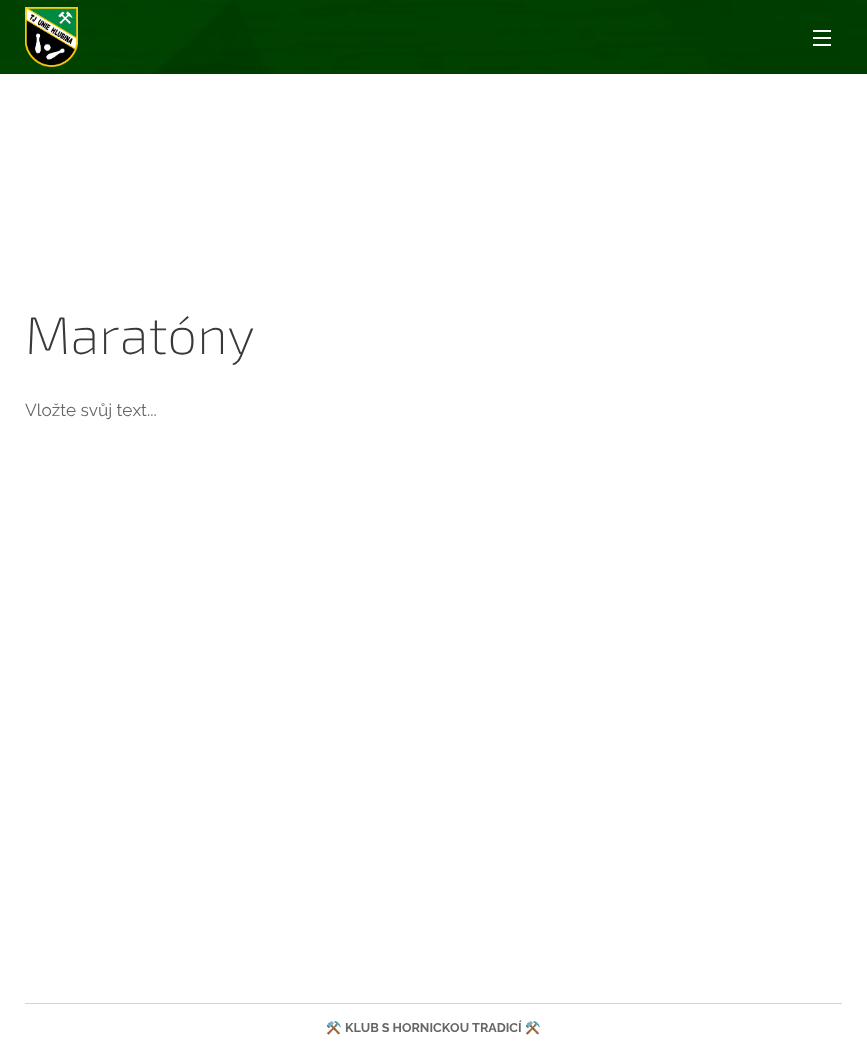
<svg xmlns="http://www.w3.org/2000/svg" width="867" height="1053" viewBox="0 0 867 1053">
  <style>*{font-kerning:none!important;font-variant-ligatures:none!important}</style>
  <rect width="100%" height="100%" fill="#ffffff"/>
  <image x="0" y="0" width="867" height="74" href="img1.png"/>
  <image x="25" y="7" width="53" height="60" href="img2.png"/>
  <rect x="813" y="37" width="18" height="2" fill="#ffffff"/>
  <rect x="813" y="30" width="18" height="2" fill="#ffffff"/>
  <rect x="813" y="44" width="18" height="2" fill="#ffffff"/>
  <text x="25" y="354" font-family="'Exo 2'" font-size="53" font-weight="200" fill="#393939">Maratóny</text>
  <text x="25" y="416" font-family="Raleway" font-size="17.25" fill="#666666">Vložte svůj text...</text>
  <rect x="25" y="1003" width="817" height="1" fill="#d4d4d4"/>
  <text x="326" y="1032" font-family="Noto Color Emoji" font-size="12.6" font-weight="bold" fill="#666666">⚒</text>
  <text x="345" y="1032" font-family="Raleway" font-size="12.6" font-weight="bold" fill="#666666">KLUB S HORNICKOU TRADICÍ</text>
  <text x="525" y="1032" font-family="Noto Color Emoji" font-size="12.6" font-weight="bold" fill="#666666">⚒</text>
</svg>
